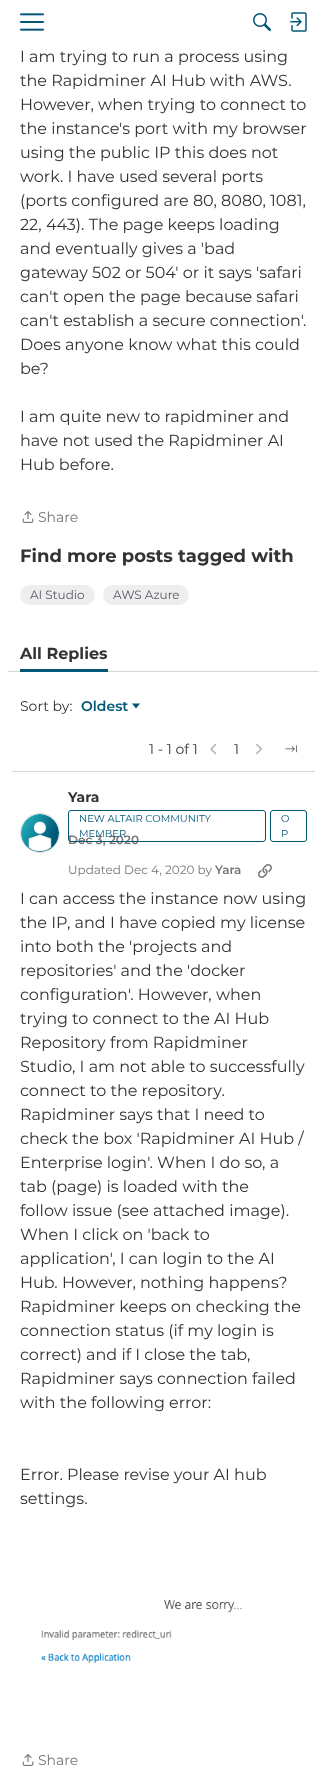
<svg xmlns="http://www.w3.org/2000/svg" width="327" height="1780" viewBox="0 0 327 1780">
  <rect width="100%" height="100%" fill="#ffffff"/>
  <image x="20" y="13" width="24" height="18" href="img1.png"/>
  <image x="253" y="13" width="18" height="18" href="img2.png"/>
  <image x="290" y="12" width="17" height="20" href="img3.png"/>
  <text x="20" y="62" font-family="Montserrat" font-size="16" fill="#333333">I am trying to run a process using</text>
  <text x="20" y="86" font-family="Montserrat" font-size="16" fill="#333333">the Rapidminer AI Hub with AWS.</text>
  <text x="20" y="110" font-family="Montserrat" font-size="16" fill="#333333">However, when trying to connect to</text>
  <text x="20" y="134" font-family="Montserrat" font-size="16" fill="#333333">the instance's port with my browser</text>
  <text x="20" y="158" font-family="Montserrat" font-size="16" fill="#333333">using the public IP this does not</text>
  <text x="20" y="182" font-family="Montserrat" font-size="16" fill="#333333">work. I have used several ports</text>
  <text x="20" y="206" font-family="Montserrat" font-size="16" fill="#333333">(ports configured are 80, 8080, 1081,</text>
  <text x="20" y="230" font-family="Montserrat" font-size="16" fill="#333333">22, 443). The page keeps loading</text>
  <text x="20" y="254" font-family="Montserrat" font-size="16" fill="#333333">and eventually gives a 'bad</text>
  <text x="20" y="278" font-family="Montserrat" font-size="16" fill="#333333">gateway 502 or 504' or it says 'safari</text>
  <text x="20" y="302" font-family="Montserrat" font-size="16" fill="#333333">can't open the page because safari</text>
  <text x="20" y="326" font-family="Montserrat" font-size="16" fill="#333333">can't establish a secure connection'.</text>
  <text x="20" y="350" font-family="Montserrat" font-size="16" fill="#333333">Does anyone know what this could</text>
  <text x="20" y="374" font-family="Montserrat" font-size="16" fill="#333333">be?</text>
  <text x="20" y="422" font-family="Montserrat" font-size="16" fill="#333333">I am quite new to rapidminer and</text>
  <text x="20" y="446" font-family="Montserrat" font-size="16" fill="#333333">have not used the Rapidminer AI</text>
  <text x="20" y="470" font-family="Montserrat" font-size="16" fill="#333333">Hub before.</text>
  <image x="22" y="511" width="12" height="12" href="img4.png"/>
  <text x="38" y="522" font-family="Montserrat" font-size="14" fill="#767676">Share</text>
  <text x="20" y="562" font-family="Montserrat" font-size="18" font-weight="bold" fill="#333333">Find more posts tagged with</text>
  <rect x="20.5" y="585.5" width="74" height="19" rx="9.5" fill="#eeeeef" stroke="#eeeeef"/>
  <text x="30" y="599" font-family="Montserrat" font-size="12" fill="#555a62">AI Studio</text>
  <rect x="103.5" y="585.5" width="85" height="19" rx="9.5" fill="#eeeeef" stroke="#eeeeef"/>
  <text x="113" y="599" font-family="Montserrat" font-size="12" fill="#555a62">AWS Azure</text>
  <rect x="8" y="671" width="311" height="1" fill="#d6d6d6"/>
  <text x="20" y="659" font-family="Montserrat" font-size="16" font-weight="bold" fill="#333333">All Replies</text>
  <rect x="20" y="669" width="88" height="3" fill="#005776"/>
  <text x="20" y="711" font-family="Montserrat" font-size="14" fill="#333333">Sort by:</text>
  <text x="81" y="711" font-family="Montserrat" font-size="14" font-weight="600" fill="#005776">Oldest</text>
  <path d="M132 703.5H140L136 708.5Z" fill="#005776"/>
  <text x="149" y="754" font-family="Montserrat" font-size="14" fill="#333333">1 - 1 of 1</text>
  <image x="210" y="743" width="7" height="12" href="img5.png"/>
  <text x="234" y="754" font-family="Montserrat" font-size="14" fill="#333333">1</text>
  <image x="256" y="743" width="6" height="12" href="img6.png"/>
  <image x="285" y="745" width="12" height="8" href="img7.png"/>
  <rect x="12" y="771" width="303" height="1" fill="#d6d6d6"/>
  <circle cx="40" cy="833" r="19.5" fill="none" stroke="#e0e0e0"/>
  <image x="21" y="814" width="38" height="38" href="img8.png"/>
  <text x="68" y="802" font-family="Montserrat" font-size="14" font-weight="bold" fill="#333333">Yara</text>
  <text x="68" y="844" font-family="Montserrat" font-size="12" font-weight="600" fill="#767676">Dec 3, 2020</text>
  <rect x="68.5" y="810.5" width="197" height="31" rx="2.5" fill="none" stroke="#005776"/>
  <text x="79" y="822" font-family="Montserrat" font-size="10" fill="#005776">NEW ALTAIR COMMUNITY</text>
  <text x="79" y="837" font-family="Montserrat" font-size="10" fill="#005776">MEMBER</text>
  <rect x="270.5" y="810.5" width="36" height="31" rx="2.5" fill="none" stroke="#005776"/>
  <text x="281" y="822" font-family="Montserrat" font-size="10" fill="#005776">O</text>
  <text x="281" y="837" font-family="Montserrat" font-size="10" fill="#005776">P</text>
  <text x="68" y="874" font-family="Montserrat" font-size="12" fill="#767676">Updated Dec 4, 2020 by</text>
  <text x="215" y="874" font-family="Montserrat" font-size="12" font-weight="600" fill="#767676">Yara</text>
  <image x="258" y="864" width="14" height="14" href="img9.png"/>
  <text x="20" y="904" font-family="Montserrat" font-size="16" fill="#333333">I can access the instance now using</text>
  <text x="20" y="928" font-family="Montserrat" font-size="16" fill="#333333">the IP, and I have copied my license</text>
  <text x="20" y="952" font-family="Montserrat" font-size="16" fill="#333333">into both the 'projects and</text>
  <text x="20" y="976" font-family="Montserrat" font-size="16" fill="#333333">repositories' and the 'docker</text>
  <text x="20" y="1000" font-family="Montserrat" font-size="16" fill="#333333">configuration'. However, when</text>
  <text x="20" y="1024" font-family="Montserrat" font-size="16" fill="#333333">trying to connect to the AI Hub</text>
  <text x="20" y="1048" font-family="Montserrat" font-size="16" fill="#333333">Repository from Rapidminer</text>
  <text x="20" y="1072" font-family="Montserrat" font-size="16" fill="#333333">Studio, I am not able to successfully</text>
  <text x="20" y="1096" font-family="Montserrat" font-size="16" fill="#333333">connect to the repository.</text>
  <text x="20" y="1120" font-family="Montserrat" font-size="16" fill="#333333">Rapidminer says that I need to</text>
  <text x="20" y="1144" font-family="Montserrat" font-size="16" fill="#333333">check the box 'Rapidminer AI Hub /</text>
  <text x="20" y="1168" font-family="Montserrat" font-size="16" fill="#333333">Enterprise login'. When I do so, a</text>
  <text x="20" y="1192" font-family="Montserrat" font-size="16" fill="#333333">tab (page) is loaded with the</text>
  <text x="20" y="1216" font-family="Montserrat" font-size="16" fill="#333333">follow issue (see attached image).</text>
  <text x="20" y="1240" font-family="Montserrat" font-size="16" fill="#333333">When I click on 'back to</text>
  <text x="20" y="1264" font-family="Montserrat" font-size="16" fill="#333333">application', I can login to the AI</text>
  <text x="20" y="1288" font-family="Montserrat" font-size="16" fill="#333333">Hub. However, nothing happens?</text>
  <text x="20" y="1312" font-family="Montserrat" font-size="16" fill="#333333">Rapidminer keeps on checking the</text>
  <text x="20" y="1336" font-family="Montserrat" font-size="16" fill="#333333">connection status (if my login is</text>
  <text x="20" y="1360" font-family="Montserrat" font-size="16" fill="#333333">correct) and if I close the tab,</text>
  <text x="20" y="1384" font-family="Montserrat" font-size="16" fill="#333333">Rapidminer says connection failed</text>
  <text x="20" y="1408" font-family="Montserrat" font-size="16" fill="#333333">with the following error:</text>
  <text x="20" y="1480" font-family="Montserrat" font-size="16" fill="#333333">Error. Please revise your AI hub</text>
  <text x="20" y="1504" font-family="Montserrat" font-size="16" fill="#333333">settings.</text>
  <image x="41" y="1599" width="201" height="64" href="img10.png"/>
  <image x="22" y="1754" width="12" height="12" href="img4.png"/>
  <text x="38" y="1765" font-family="Montserrat" font-size="14" fill="#767676">Share</text>
</svg>
